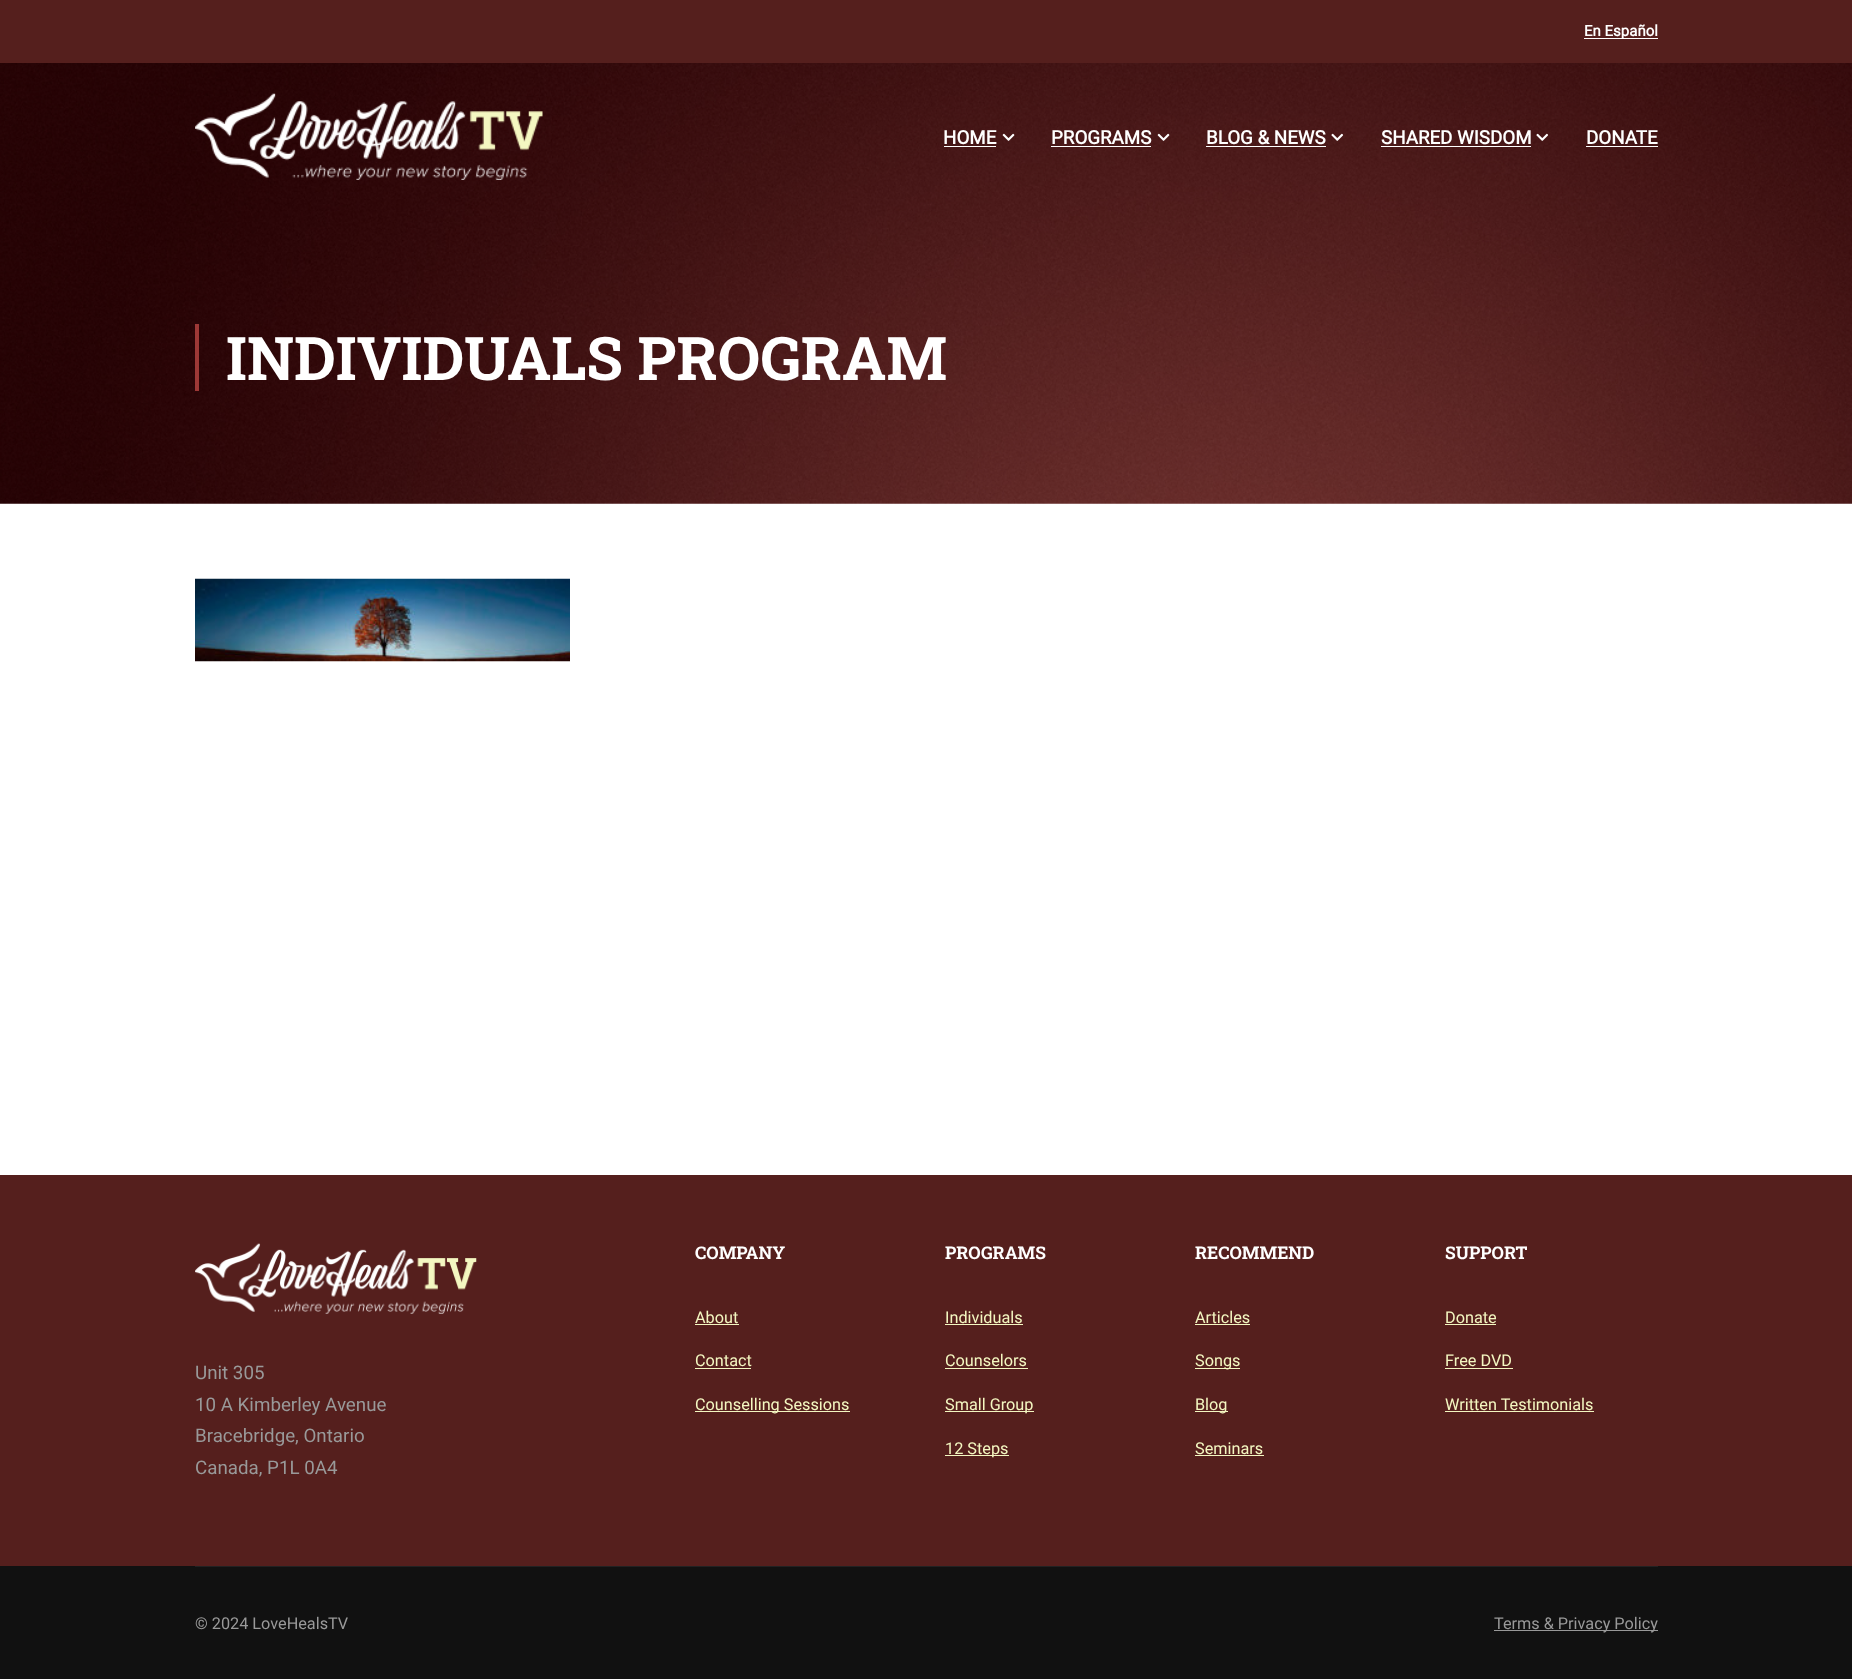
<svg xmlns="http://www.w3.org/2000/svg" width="1852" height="1679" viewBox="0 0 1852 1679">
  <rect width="100%" height="100%" fill="#ffffff"/>
  <rect x="0" y="0" width="1852" height="63" fill="#551f1d"/>
  <rect x="1584" y="38" width="74" height="1" fill="#ffffff"/>
  <text x="1584" y="36" font-family="Roboto" font-size="15" font-weight="bold" fill="#ffffff">En Español</text>
  <image x="0" y="63" width="1852" height="441" href="img6.png"/>
  <image x="195" y="93" width="348" height="87" href="img1.png"/>
  <text x="943" y="144" font-family="Roboto" font-size="18.75" font-weight="bold" fill="#ffffff">HOME</text>
  <rect x="944" y="146" width="52" height="1" fill="#ffffff"/>
  <image x="1002" y="133" width="13" height="8" href="img2.png"/>
  <text x="1051" y="144" font-family="Roboto" font-size="18.75" font-weight="bold" fill="#ffffff">PROGRAMS</text>
  <rect x="1051" y="146" width="100" height="1" fill="#ffffff"/>
  <image x="1157" y="133" width="13" height="8" href="img3.png"/>
  <text x="1206" y="144" font-family="Roboto" font-size="18.75" font-weight="bold" fill="#ffffff">BLOG &amp; NEWS</text>
  <rect x="1206" y="146" width="120" height="1" fill="#ffffff"/>
  <image x="1331" y="133" width="13" height="8" href="img4.png"/>
  <text x="1381" y="144" font-family="Roboto" font-size="18.75" font-weight="bold" fill="#ffffff">SHARED WISDOM</text>
  <rect x="1381" y="146" width="150" height="1" fill="#ffffff"/>
  <image x="1536" y="133" width="13" height="8" href="img5.png"/>
  <text x="1586" y="144" font-family="Roboto" font-size="18.75" font-weight="bold" fill="#ffffff">DONATE</text>
  <rect x="1586" y="146" width="72" height="1" fill="#ffffff"/>
  <rect x="195" y="324" width="4" height="67" fill="#9d3836"/>
  <text x="226" y="380" font-family="Roboto Slab" font-size="60" font-weight="bold" fill="#ffffff">INDIVIDUALS PROGRAM</text>
  <image x="195" y="578" width="375" height="84" href="img7.png"/>
  <rect x="0" y="1175" width="1852" height="391" fill="#551f1d"/>
  <image x="195" y="1243" width="282" height="71" href="img8.png"/>
  <text x="195" y="1379" font-family="Roboto" font-size="18.75" fill="#999999">Unit 305</text>
  <text x="195" y="1411" font-family="Roboto" font-size="18.75" fill="#999999">10 A Kimberley Avenue</text>
  <text x="195" y="1442" font-family="Roboto" font-size="18.75" fill="#999999">Bracebridge, Ontario</text>
  <text x="195" y="1474" font-family="Roboto" font-size="18.75" fill="#999999">Canada, P1L 0A4</text>
  <text x="695" y="1259" font-family="Roboto Slab" font-size="17.5" font-weight="bold" fill="#ffffff">COMPANY</text>
  <text x="695" y="1323" font-family="Roboto" font-size="16.25" fill="#f4f7c1">About</text>
  <rect x="695" y="1324" width="44" height="1" fill="#f4f7c1"/>
  <text x="695" y="1366" font-family="Roboto" font-size="16.25" fill="#f4f7c1">Contact</text>
  <rect x="695" y="1368" width="56" height="1" fill="#f4f7c1"/>
  <rect x="695" y="1411" width="155" height="1" fill="#f4f7c1"/>
  <text x="695" y="1410" font-family="Roboto" font-size="16.25" fill="#f4f7c1">Counselling Sessions</text>
  <text x="945" y="1259" font-family="Roboto Slab" font-size="17.5" font-weight="bold" fill="#ffffff">PROGRAMS</text>
  <text x="945" y="1323" font-family="Roboto" font-size="16.25" fill="#f4f7c1">Individuals</text>
  <rect x="945" y="1324" width="78" height="1" fill="#f4f7c1"/>
  <text x="945" y="1366" font-family="Roboto" font-size="16.25" fill="#f4f7c1">Counselors</text>
  <rect x="945" y="1368" width="83" height="1" fill="#f4f7c1"/>
  <rect x="945" y="1411" width="89" height="1" fill="#f4f7c1"/>
  <text x="945" y="1410" font-family="Roboto" font-size="16.25" fill="#f4f7c1">Small Group</text>
  <rect x="945" y="1455" width="64" height="1" fill="#f4f7c1"/>
  <text x="945" y="1454" font-family="Roboto" font-size="16.25" fill="#f4f7c1">12 Steps</text>
  <text x="1195" y="1259" font-family="Roboto Slab" font-size="17.5" font-weight="bold" fill="#ffffff">RECOMMEND</text>
  <text x="1195" y="1323" font-family="Roboto" font-size="16.25" fill="#f4f7c1">Articles</text>
  <rect x="1195" y="1324" width="55" height="1" fill="#f4f7c1"/>
  <rect x="1195" y="1368" width="45" height="1" fill="#f4f7c1"/>
  <text x="1195" y="1366" font-family="Roboto" font-size="16.25" fill="#f4f7c1">Songs</text>
  <rect x="1195" y="1411" width="33" height="1" fill="#f4f7c1"/>
  <text x="1195" y="1410" font-family="Roboto" font-size="16.25" fill="#f4f7c1">Blog</text>
  <text x="1195" y="1454" font-family="Roboto" font-size="16.25" fill="#f4f7c1">Seminars</text>
  <rect x="1195" y="1455" width="69" height="1" fill="#f4f7c1"/>
  <text x="1445" y="1259" font-family="Roboto Slab" font-size="17.5" font-weight="bold" fill="#ffffff">SUPPORT</text>
  <text x="1445" y="1323" font-family="Roboto" font-size="16.25" fill="#f4f7c1">Donate</text>
  <rect x="1445" y="1324" width="51" height="1" fill="#f4f7c1"/>
  <text x="1445" y="1366" font-family="Roboto" font-size="16.25" fill="#f4f7c1">Free DVD</text>
  <rect x="1445" y="1368" width="68" height="1" fill="#f4f7c1"/>
  <text x="1445" y="1410" font-family="Roboto" font-size="16.25" fill="#f4f7c1">Written Testimonials</text>
  <rect x="1445" y="1411" width="149" height="1" fill="#f4f7c1"/>
  <rect x="0" y="1566" width="1852" height="113" fill="#111111"/>
  <rect x="195" y="1566" width="1463" height="1" fill="#222222"/>
  <text x="195" y="1629" font-family="Roboto" font-size="16.25" fill="#999999">© 2024 LoveHealsTV</text>
  <rect x="1494" y="1630" width="164" height="1" fill="#999999"/>
  <text x="1494" y="1629" font-family="Roboto" font-size="16.25" fill="#999999">Terms &amp; Privacy Policy</text>
</svg>
